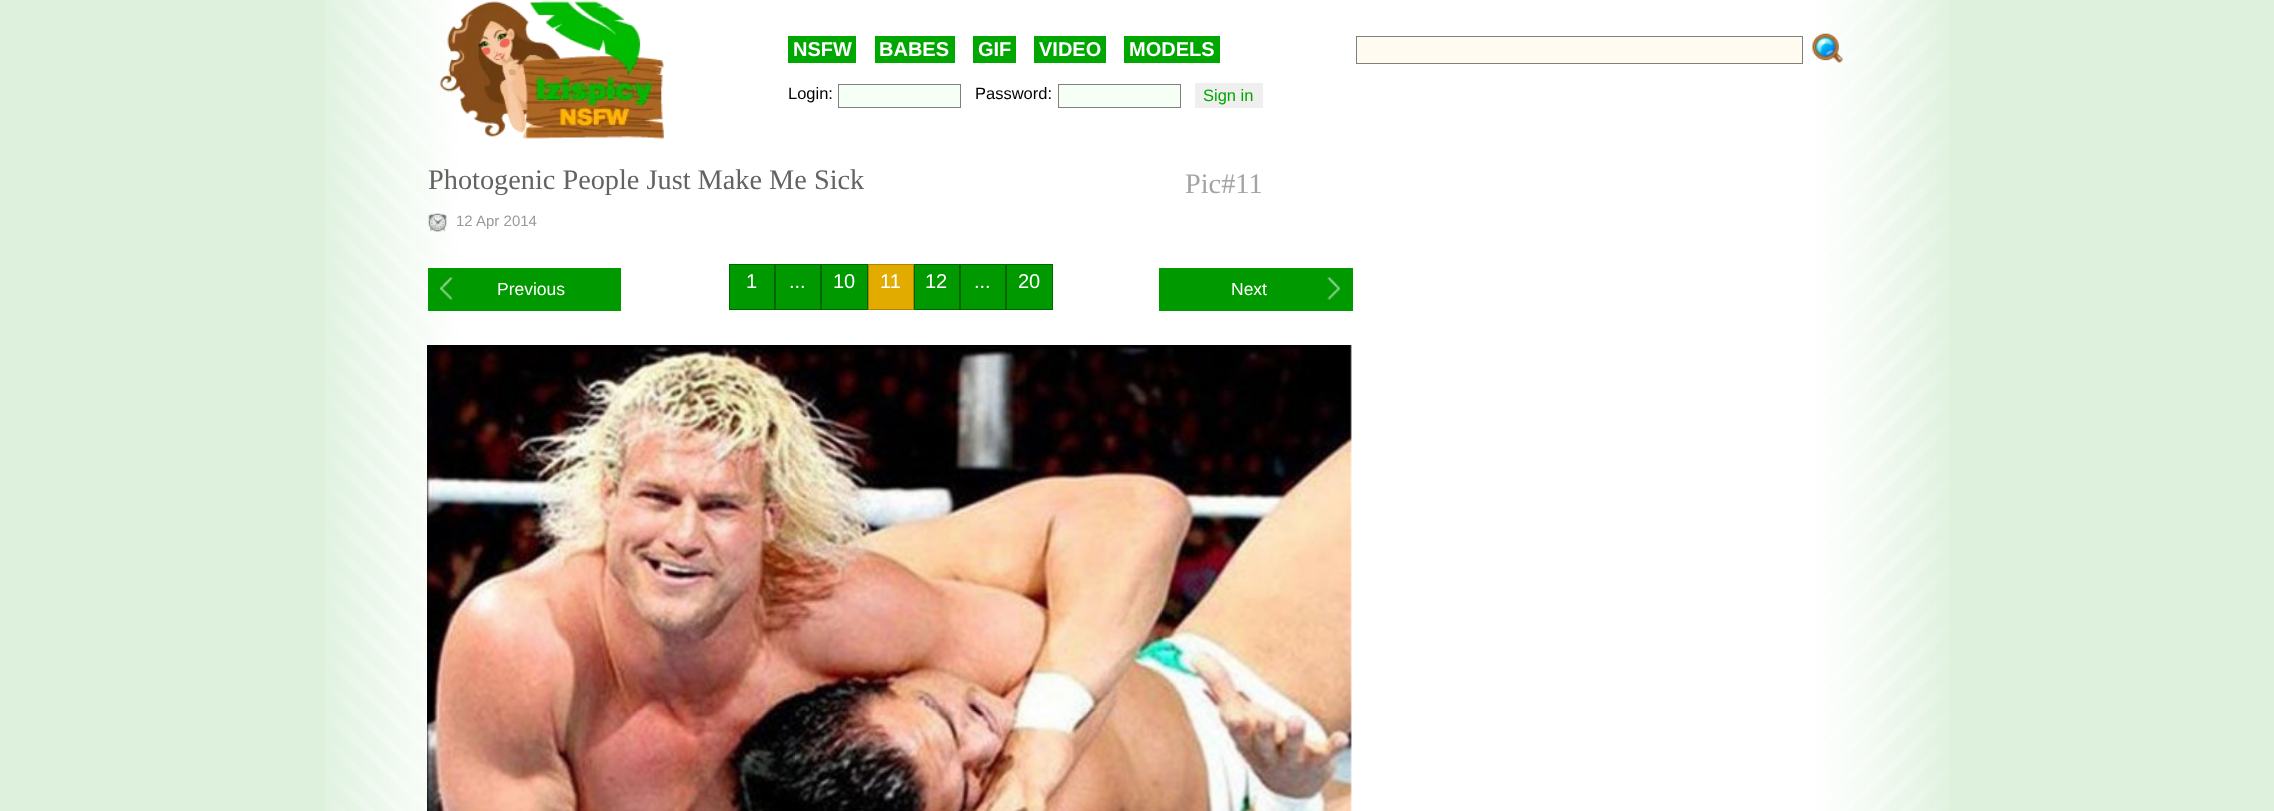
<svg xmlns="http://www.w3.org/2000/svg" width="2274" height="811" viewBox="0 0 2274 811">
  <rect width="100%" height="100%" fill="#ddf1dd"/>
  <image x="325" y="0" width="1625" height="811" href="img1.png"/>
  <image x="439" y="1" width="225" height="138" href="img2.png"/>
  <rect x="788" y="36" width="68" height="27" fill="#00a700"/>
  <text x="793" y="56" font-family="Liberation Sans" font-size="20" font-weight="bold" fill="#ffffff">NSFW</text>
  <rect x="875" y="36" width="80" height="27" fill="#00a700"/>
  <text x="879" y="56" font-family="Liberation Sans" font-size="20" font-weight="bold" fill="#ffffff">BABES</text>
  <rect x="973" y="36" width="43" height="27" fill="#00a700"/>
  <text x="978" y="56" font-family="Liberation Sans" font-size="20" font-weight="bold" fill="#ffffff">GIF</text>
  <rect x="1034" y="36" width="72" height="27" fill="#00a700"/>
  <text x="1039" y="56" font-family="Liberation Sans" font-size="20" font-weight="bold" fill="#ffffff">VIDEO</text>
  <rect x="1124" y="36" width="96" height="27" fill="#00a700"/>
  <text x="1129" y="56" font-family="Liberation Sans" font-size="20" font-weight="bold" fill="#ffffff">MODELS</text>
  <rect x="1356.5" y="36.5" width="446" height="27" fill="#fffbf0" stroke="#7f7f7f"/>
  <image x="1812" y="33" width="31" height="30" href="img3.png"/>
  <text x="788" y="99" font-family="Liberation Sans" font-size="16.5" fill="#000000">Login:</text>
  <rect x="838.5" y="84.5" width="122" height="23" fill="#f6fff6" stroke="#7f7f7f"/>
  <text x="975" y="99" font-family="Liberation Sans" font-size="16.5" fill="#000000">Password:</text>
  <rect x="1058.5" y="84.5" width="122" height="23" fill="#f6fff6" stroke="#7f7f7f"/>
  <rect x="1195" y="83" width="68" height="25" fill="#efefef"/>
  <text x="1203" y="101" font-family="Liberation Sans" font-size="16.5" fill="#00a700">Sign in</text>
  <text x="428" y="189" font-family="Liberation Serif" font-size="28.3" fill="#636363">Photogenic People Just Make Me Sick</text>
  <text x="1185" y="193" font-family="Liberation Serif" font-size="28.3" fill="#a4a4a4">Pic#11</text>
  <image x="428" y="213" width="19" height="19" href="img4.png"/>
  <text x="456" y="226" font-family="Liberation Sans" font-size="15" fill="#999999">12 Apr 2014</text>
  <rect x="428" y="268" width="193" height="43" fill="#009900"/>
  <image x="440" y="277" width="13" height="23" href="img5.png"/>
  <text x="497" y="295" font-family="Liberation Sans" font-size="17.5" fill="#ffffff">Previous</text>
  <rect x="729.5" y="264.5" width="45" height="45" fill="#009900" stroke="#006600"/>
  <text x="746" y="288" font-family="Liberation Sans" font-size="20" fill="#ffffff">1</text>
  <rect x="775.5" y="264.5" width="45" height="45" fill="#009900" stroke="#006600"/>
  <text x="789" y="288" font-family="Liberation Sans" font-size="20" fill="#ffffff">...</text>
  <rect x="821.5" y="264.5" width="46" height="45" fill="#009900" stroke="#006600"/>
  <text x="833" y="288" font-family="Liberation Sans" font-size="20" fill="#ffffff">10</text>
  <rect x="868.5" y="264.5" width="45" height="45" fill="#e1ab00" stroke="#ae8400"/>
  <text x="880" y="288" font-family="Liberation Sans" font-size="20" fill="#ffffff">11</text>
  <rect x="914.5" y="264.5" width="45" height="45" fill="#009900" stroke="#006600"/>
  <text x="925" y="288" font-family="Liberation Sans" font-size="20" fill="#ffffff">12</text>
  <rect x="960.5" y="264.5" width="45" height="45" fill="#009900" stroke="#006600"/>
  <text x="974" y="288" font-family="Liberation Sans" font-size="20" fill="#ffffff">...</text>
  <rect x="1006.5" y="264.5" width="46" height="45" fill="#009900" stroke="#006600"/>
  <text x="1018" y="288" font-family="Liberation Sans" font-size="20" fill="#ffffff">20</text>
  <rect x="1159" y="268" width="194" height="43" fill="#009900"/>
  <text x="1231" y="295" font-family="Liberation Sans" font-size="17.5" fill="#ffffff">Next</text>
  <image x="1327" y="277" width="13" height="23" href="img6.png"/>
  <image x="427" y="345" width="925" height="466" href="img7.png"/>
</svg>
